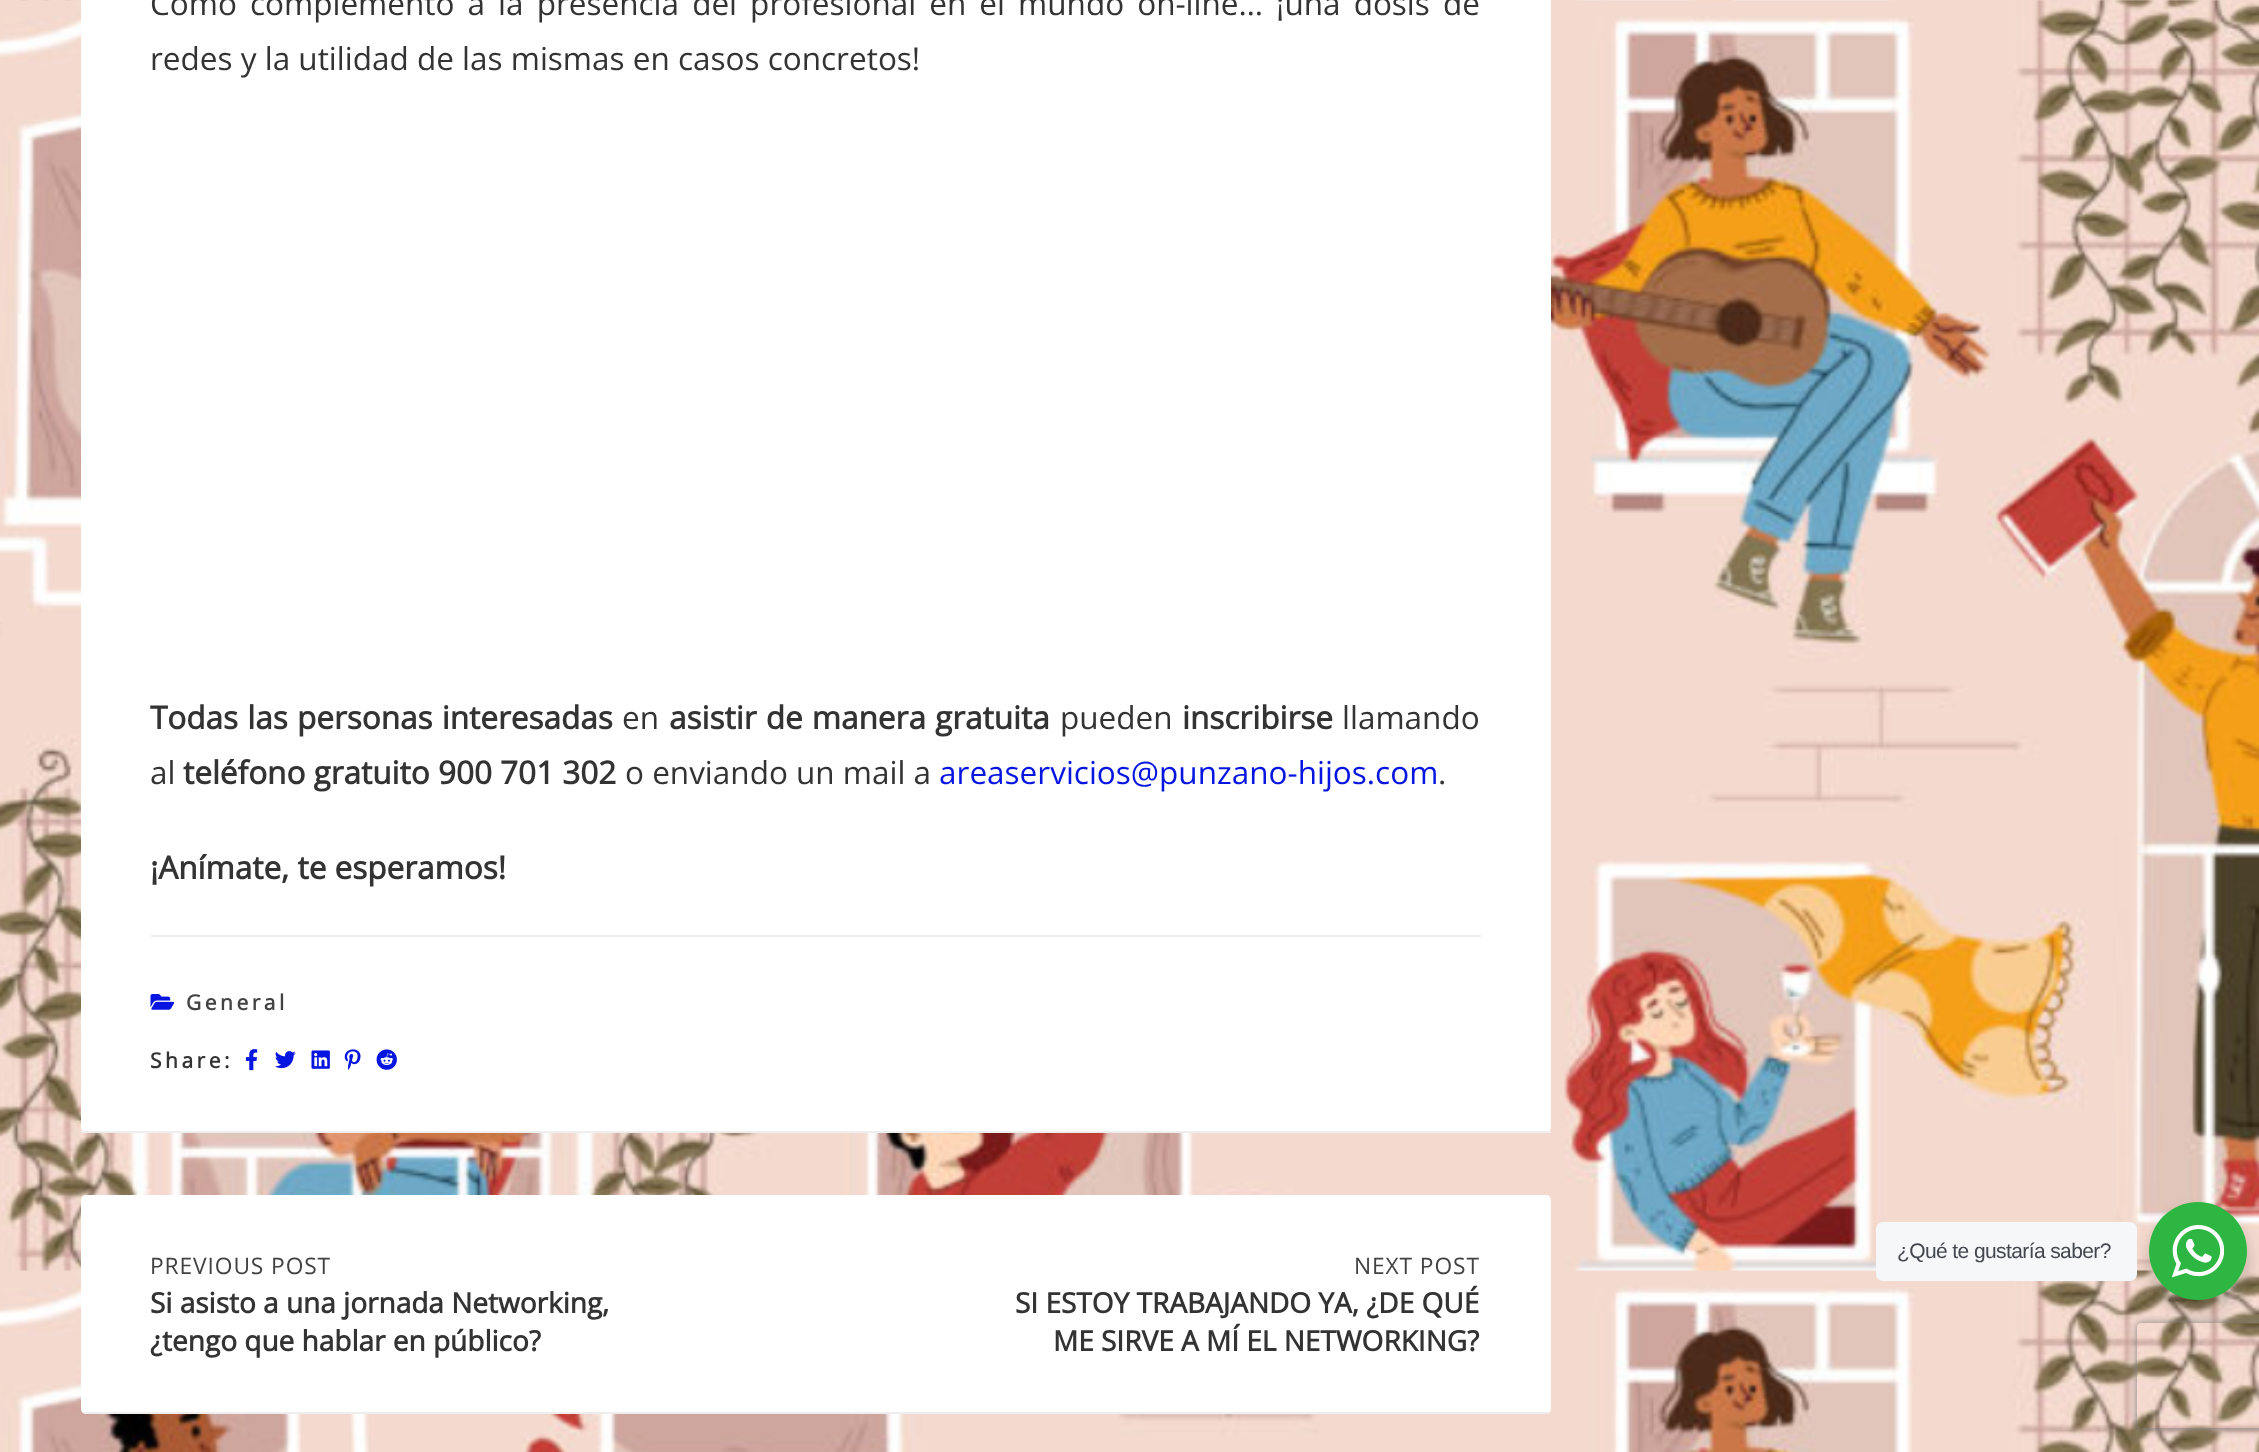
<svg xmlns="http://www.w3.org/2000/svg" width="2259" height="1452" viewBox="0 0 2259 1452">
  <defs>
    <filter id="blur1" x="-50%" y="-200%" width="200%" height="500%"><feGaussianBlur stdDeviation="7"/></filter>
    <clipPath id="clip1"><path d="M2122 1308H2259V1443H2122ZM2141 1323H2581C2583 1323 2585 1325 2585 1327V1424C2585 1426 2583 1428 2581 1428H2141C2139 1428 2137 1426 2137 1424V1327C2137 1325 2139 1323 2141 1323Z" clip-rule="evenodd"/></clipPath>
    <filter id="blur2" x="-50%" y="-200%" width="200%" height="500%"><feGaussianBlur stdDeviation="4.5"/></filter>
  </defs>
  <rect width="100%" height="100%" fill="#ffffff"/>
  <image x="0" y="0" width="2259" height="1452" href="img1.png"/>
  <rect x="81" y="-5" width="1470" height="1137" rx="5" fill="#ffffff"/>
  <rect x="81" y="1131" width="1470" height="2" fill="#eeeeee"/>
  <text x="150" y="15" word-spacing="4.9" font-family="Open Sans" font-size="31.5" fill="#333333">Como complemento a la presencia del profesional en el mundo on-line… ¡una dosis de</text>
  <text x="150" y="70" font-family="Open Sans" font-size="31.5" fill="#333333">redes y la utilidad de las mismas en casos concretos!</text>
  <text x="150" y="729" word-spacing="1" font-family="Open Sans" font-size="31.5" font-weight="bold" fill="#333333">Todas las personas interesadas</text>
  <text x="622" y="729" font-family="Open Sans" font-size="31.5" fill="#333333">en</text>
  <text x="669" y="729" word-spacing="1" font-family="Open Sans" font-size="31.5" font-weight="bold" fill="#333333">asistir de manera gratuita</text>
  <text x="1060" y="729" font-family="Open Sans" font-size="31.5" fill="#333333">pueden</text>
  <text x="1182" y="729" font-family="Open Sans" font-size="31.5" font-weight="bold" fill="#333333">inscribirse</text>
  <text x="1342" y="729" font-family="Open Sans" font-size="31.5" fill="#333333">llamando</text>
  <text x="150" y="784" font-family="Open Sans" font-size="31.5" fill="#333333">al</text>
  <text x="183" y="784" font-family="Open Sans" font-size="31.5" font-weight="bold" fill="#333333">teléfono gratuito 900 701 302</text>
  <text x="625" y="784" font-family="Open Sans" font-size="31.5" fill="#333333">o enviando un mail a</text>
  <text x="939" y="784" font-family="Open Sans" font-size="31.5" fill="#0615e0">areaservicios@punzano-hijos.com</text>
  <text x="1438" y="784" font-family="Open Sans" font-size="31.5" fill="#333333">.</text>
  <text x="150" y="879" font-family="Open Sans" font-size="31.5" font-weight="bold" fill="#333333">¡Anímate, te esperamos!</text>
  <rect x="151" y="935" width="1330" height="2" fill="#eeeeee"/>
  <image x="150" y="994" width="25" height="16" href="img2.png"/>
  <text x="186" y="1010" font-family="Open Sans" font-size="21" font-weight="bold" letter-spacing="3.5" fill="#424242">General</text>
  <text x="150" y="1068" font-family="Open Sans" font-size="21" font-weight="bold" letter-spacing="3.5" fill="#333333">Share:</text>
  <image x="245" y="1049" width="13" height="22" href="img3.png"/>
  <image x="275" y="1051" width="21" height="18" href="img4.png"/>
  <image x="311" y="1050" width="19" height="19" href="img5.png"/>
  <image x="344" y="1049" width="17" height="21" href="img6.png"/>
  <image x="376" y="1049" width="21" height="21" href="img7.png"/>
  <rect x="81" y="1195" width="1470" height="219" rx="5" fill="#ffffff"/>
  <rect x="84" y="1412" width="1465" height="2" fill="#eeeeee"/>
  <text x="150" y="1274" font-family="Open Sans" font-size="22.75" letter-spacing="0.9" fill="#424242">PREVIOUS POST</text>
  <text x="150" y="1313" font-family="Open Sans" font-size="28" font-weight="bold" fill="#333333">Si asisto a una jornada Networking,</text>
  <text x="150" y="1351" font-family="Open Sans" font-size="28" font-weight="bold" fill="#333333">¿tengo que hablar en público?</text>
  <text x="1354" y="1274" font-family="Open Sans" font-size="22.75" letter-spacing="0.9" fill="#424242">NEXT POST</text>
  <text x="1015" y="1313" font-family="Open Sans" font-size="28" font-weight="bold" fill="#333333">SI ESTOY TRABAJANDO YA, ¿DE QUÉ</text>
  <text x="1053" y="1351" font-family="Open Sans" font-size="28" font-weight="bold" fill="#333333">ME SIRVE A MÍ EL NETWORKING?</text>
  <rect x="2146" y="1209" width="105" height="105" rx="52.5" fill="#000000" fill-opacity="0.14" filter="url(#blur1)"/>
  <rect x="1876" y="1222" width="261" height="59" rx="7" fill="#f5f7f9"/>
  <text x="1897" y="1258" font-family="Liberation Sans" font-size="21" letter-spacing="-0.6" fill="#43474e">¿Qué te gustaría saber?</text>
  <circle cx="2198" cy="1251" r="49" fill="#2db742"/>
  <image x="2172" y="1225" width="52" height="53" href="img8.png"/>
  <g clip-path="url(#clip1)">
    <rect x="2137" y="1323" width="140" height="105" rx="4" fill="#808080" filter="url(#blur2)"/>
  </g>
</svg>
